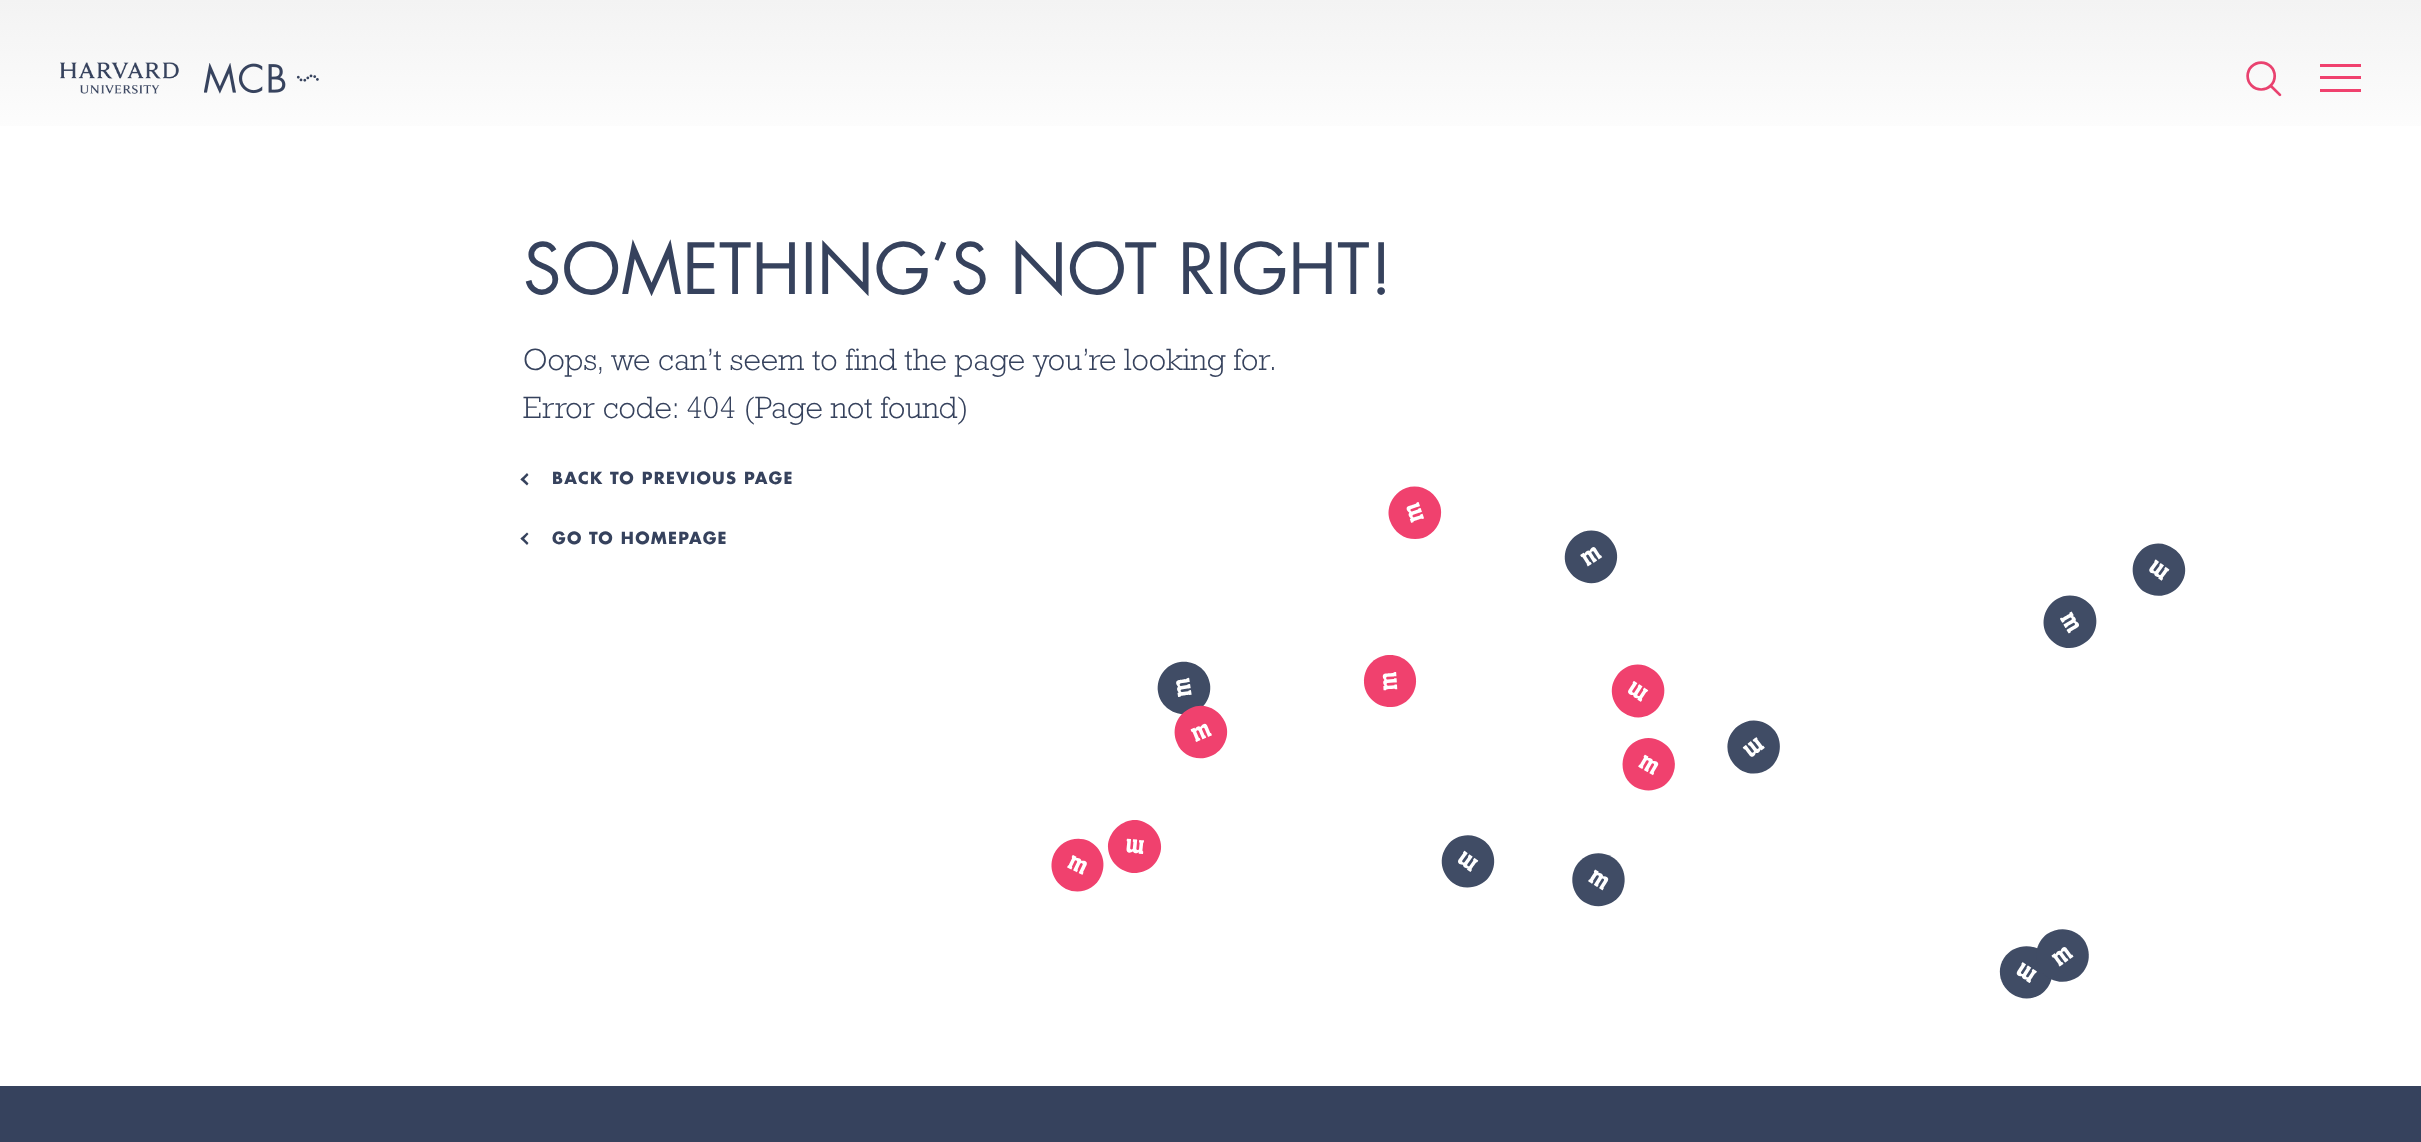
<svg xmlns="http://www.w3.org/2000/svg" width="2421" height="1142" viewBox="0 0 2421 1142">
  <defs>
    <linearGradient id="g1" gradientUnits="userSpaceOnUse" x1="1211" y1="0" x2="1211" y2="159"><stop offset="0" stop-color="#f3f3f3"/><stop offset="1" stop-color="#ffffff"/></linearGradient>
  </defs>
  <rect width="100%" height="100%" fill="#ffffff"/>
  <rect x="0" y="0" width="2421" height="126" fill="url(#g1)"/>
  <image x="60" y="62" width="119" height="32" href="img1.png"/>
  <image x="204" y="63" width="115" height="31" href="img2.png"/>
  <image x="2246" y="61" width="36" height="36" href="img3.png"/>
  <rect x="2320" y="64" width="41" height="3" fill="#f0416e"/>
  <rect x="2320" y="76" width="41" height="3" fill="#f0416e"/>
  <rect x="2320" y="89" width="41" height="3" fill="#f0416e"/>
  <text x="523" y="294" font-family="Futura" font-size="68.75" fill="#36425d">SOMETHING’S NOT RIGHT!</text>
  <text x="523" y="370" font-family="Rockwell" font-size="31.25" font-weight="300" fill="#36425d">Oops, we can’t seem to find the page you’re looking for.</text>
  <text x="523" y="418" font-family="Rockwell" font-size="31.25" font-weight="300" fill="#36425d">Error code: 404 (Page not found)</text>
  <path d="M520.5 479.5L527 473L528.5 475L522.5 481Z" fill="#36425d"/>
  <path d="M520.5 479.5L522.5 477.5L528.5 483.5L527 485.5Z" fill="#36425d"/>
  <text x="552" y="484" font-family="Futura" font-size="16.25" font-weight="bold" letter-spacing="1.25" fill="#36425d">BACK TO PREVIOUS PAGE</text>
  <path d="M520.5 538.5L527 532.5L528.5 534L522.5 540.5Z" fill="#36425d"/>
  <path d="M520.5 538.5L522.5 537L528.5 543L527 545Z" fill="#36425d"/>
  <text x="552" y="544" font-family="Futura" font-size="16.25" font-weight="bold" letter-spacing="1.25" fill="#36425d">GO TO HOMEPAGE</text>
  <path d="M1390 521C1385 508 1393 493 1406 488C1420 483 1435 491 1440 505C1444 518 1437 533 1423 538C1409 542 1395 535 1390 521Z" fill="#f0416e"/>
  <image x="1406" y="502" width="18" height="21" href="img4.png"/>
  <path d="M1577 535C1589 527 1605 530 1613 543C1621 555 1617 571 1605 579C1593 587 1577 583 1569 571C1561 559 1565 543 1577 535Z" fill="#404c65"/>
  <image x="1580" y="547" width="23" height="20" href="img5.png"/>
  <path d="M2143 591C2132 582 2129 566 2138 554C2146 542 2163 540 2174 549C2186 557 2189 574 2180 585C2171 597 2155 599 2143 591Z" fill="#404c65"/>
  <image x="2149" y="559" width="21" height="22" href="img6.png"/>
  <path d="M2093 608C2100 621 2096 637 2083 644C2071 652 2055 648 2047 635C2040 623 2044 607 2057 599C2069 592 2085 596 2093 608Z" fill="#404c65"/>
  <image x="2060" y="611" width="19" height="23" href="img7.png"/>
  <path d="M1158 692C1156 677 1166 664 1180 662C1195 660 1208 670 1210 684C1212 698 1203 712 1188 714C1174 716 1160 706 1158 692Z" fill="#404c65"/>
  <image x="1176" y="677" width="16" height="20" href="img8.png"/>
  <path d="M1364 683C1363 668 1374 656 1388 655C1403 654 1415 665 1416 679C1417 694 1406 706 1392 707C1377 708 1365 697 1364 683Z" fill="#f0416e"/>
  <image x="1382" y="672" width="16" height="19" href="img9.png"/>
  <path d="M1624 713C1612 705 1608 689 1616 677C1624 664 1640 661 1652 669C1665 677 1668 693 1660 705C1652 718 1636 721 1624 713Z" fill="#f0416e"/>
  <image x="1628" y="681" width="21" height="21" href="img10.png"/>
  <path d="M1191 708C1204 702 1219 709 1225 722C1231 735 1224 751 1211 756C1198 762 1182 756 1177 743C1171 729 1177 714 1191 708Z" fill="#f0416e"/>
  <image x="1190" y="723" width="22" height="19" href="img11.png"/>
  <path d="M1662 742C1674 749 1679 765 1671 778C1664 790 1648 794 1635 787C1623 780 1619 764 1626 751C1633 739 1649 734 1662 742Z" fill="#f0416e"/>
  <image x="1638" y="754" width="21" height="22" href="img12.png"/>
  <path d="M1770 768C1758 777 1742 775 1733 763C1724 752 1726 735 1738 726C1749 717 1766 719 1775 731C1783 742 1781 759 1770 768Z" fill="#404c65"/>
  <image x="1742" y="737" width="23" height="20" href="img13.png"/>
  <path d="M1089 841C1102 848 1107 863 1101 876C1095 890 1079 895 1066 889C1053 882 1048 867 1054 854C1060 841 1076 835 1089 841Z" fill="#f0416e"/>
  <image x="1067" y="855" width="20" height="20" href="img14.png"/>
  <path d="M1132 873C1118 871 1107 859 1108 844C1110 830 1123 819 1137 820C1151 822 1162 835 1161 849C1159 864 1147 874 1132 873Z" fill="#f0416e"/>
  <image x="1126" y="838" width="18" height="16" href="img15.png"/>
  <path d="M1453 883C1441 874 1438 858 1447 846C1455 834 1472 832 1483 840C1495 848 1498 865 1489 877C1481 888 1464 891 1453 883Z" fill="#404c65"/>
  <image x="1458" y="850" width="21" height="22" href="img16.png"/>
  <path d="M1612 857C1625 865 1628 881 1621 894C1613 906 1597 910 1584 902C1572 894 1569 878 1576 866C1584 853 1600 850 1612 857Z" fill="#404c65"/>
  <image x="1588" y="869" width="21" height="22" href="img17.png"/>
  <path d="M2012 994C2000 986 1996 970 2004 958C2012 946 2028 943 2041 950C2053 958 2056 975 2048 987C2040 999 2024 1002 2012 994Z" fill="#404c65"/>
  <image x="2016" y="962" width="21" height="21" href="img18.png"/>
  <path d="M2047 934C2059 926 2075 928 2084 940C2092 952 2090 968 2078 977C2066 985 2050 983 2041 971C2033 959 2035 943 2047 934Z" fill="#404c65"/>
  <image x="2051" y="947" width="23" height="20" href="img19.png"/>
  <rect x="0" y="1086" width="2421" height="56" fill="#36425d"/>
</svg>
